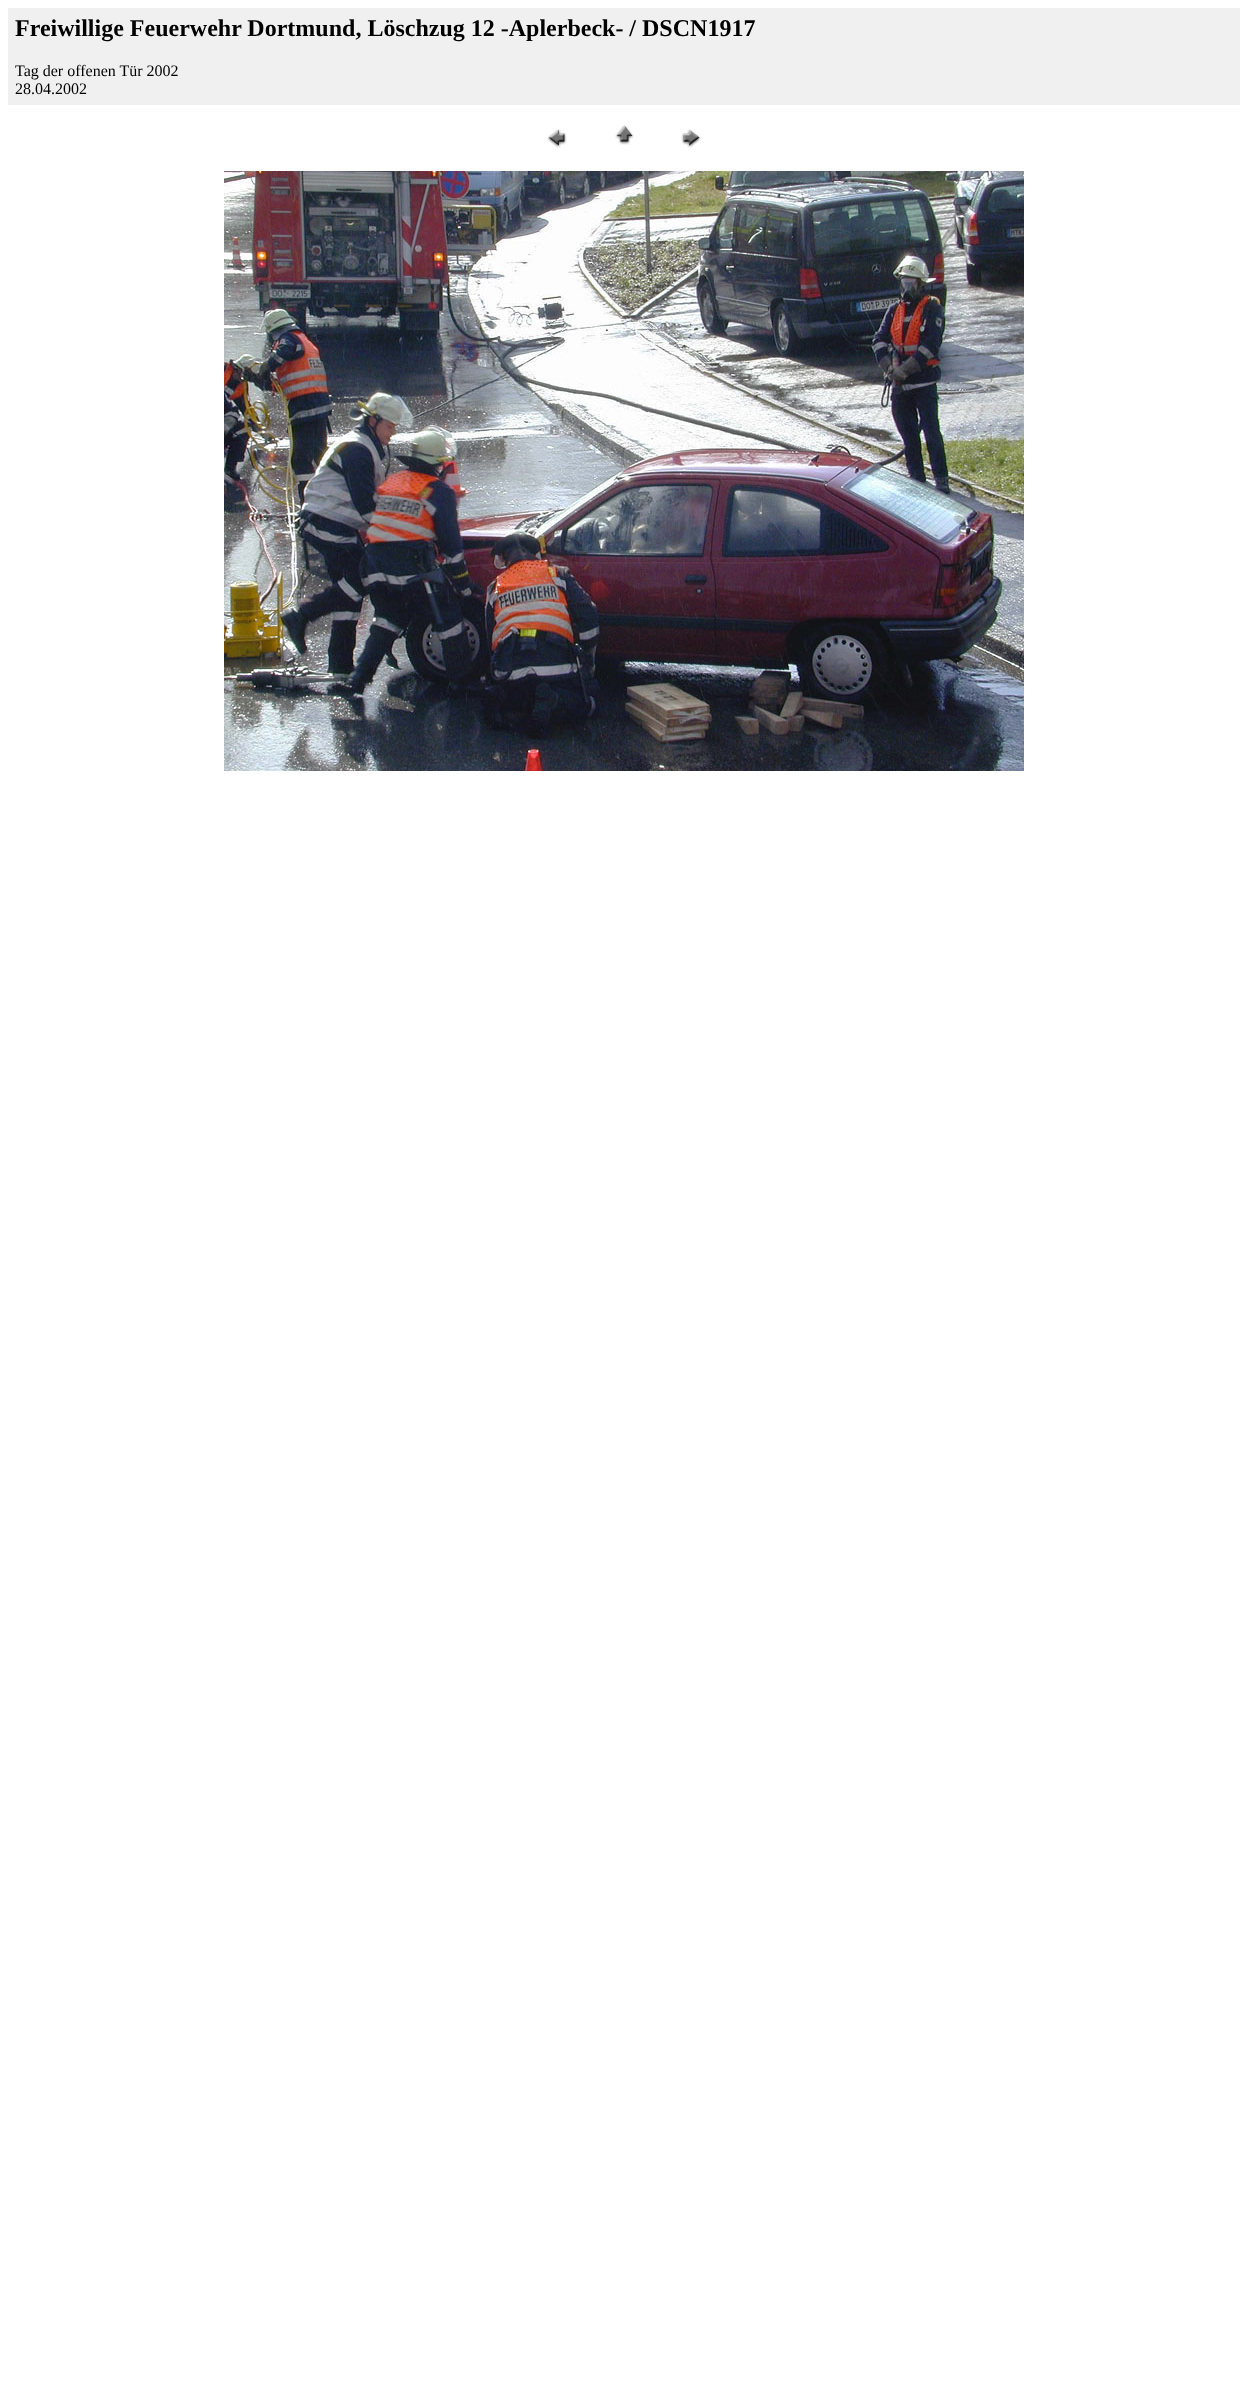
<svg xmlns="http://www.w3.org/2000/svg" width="1248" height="2396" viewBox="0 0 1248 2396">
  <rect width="100%" height="100%" fill="#ffffff"/>
  <rect x="8" y="8" width="1232" height="97" fill="#f0f0f0"/>
  <text x="15" y="36" font-family="Liberation Serif" font-size="24" font-weight="bold" fill="#000000">Freiwillige Feuerwehr Dortmund, Löschzug 12 -Aplerbeck- / DSCN1917</text>
  <text x="15" y="76" font-family="Liberation Serif" font-size="16" fill="#000000">Tag der offenen Tür 2002</text>
  <text x="15" y="94" font-family="Liberation Serif" font-size="16" fill="#000000">28.04.2002</text>
  <image x="547" y="129" width="20" height="19" href="img1.png"/>
  <image x="615" y="125" width="19" height="20" href="img2.png"/>
  <image x="681" y="129" width="20" height="19" href="img3.png"/>
  <image x="224" y="171" width="800" height="600" href="img4.png"/>
</svg>
